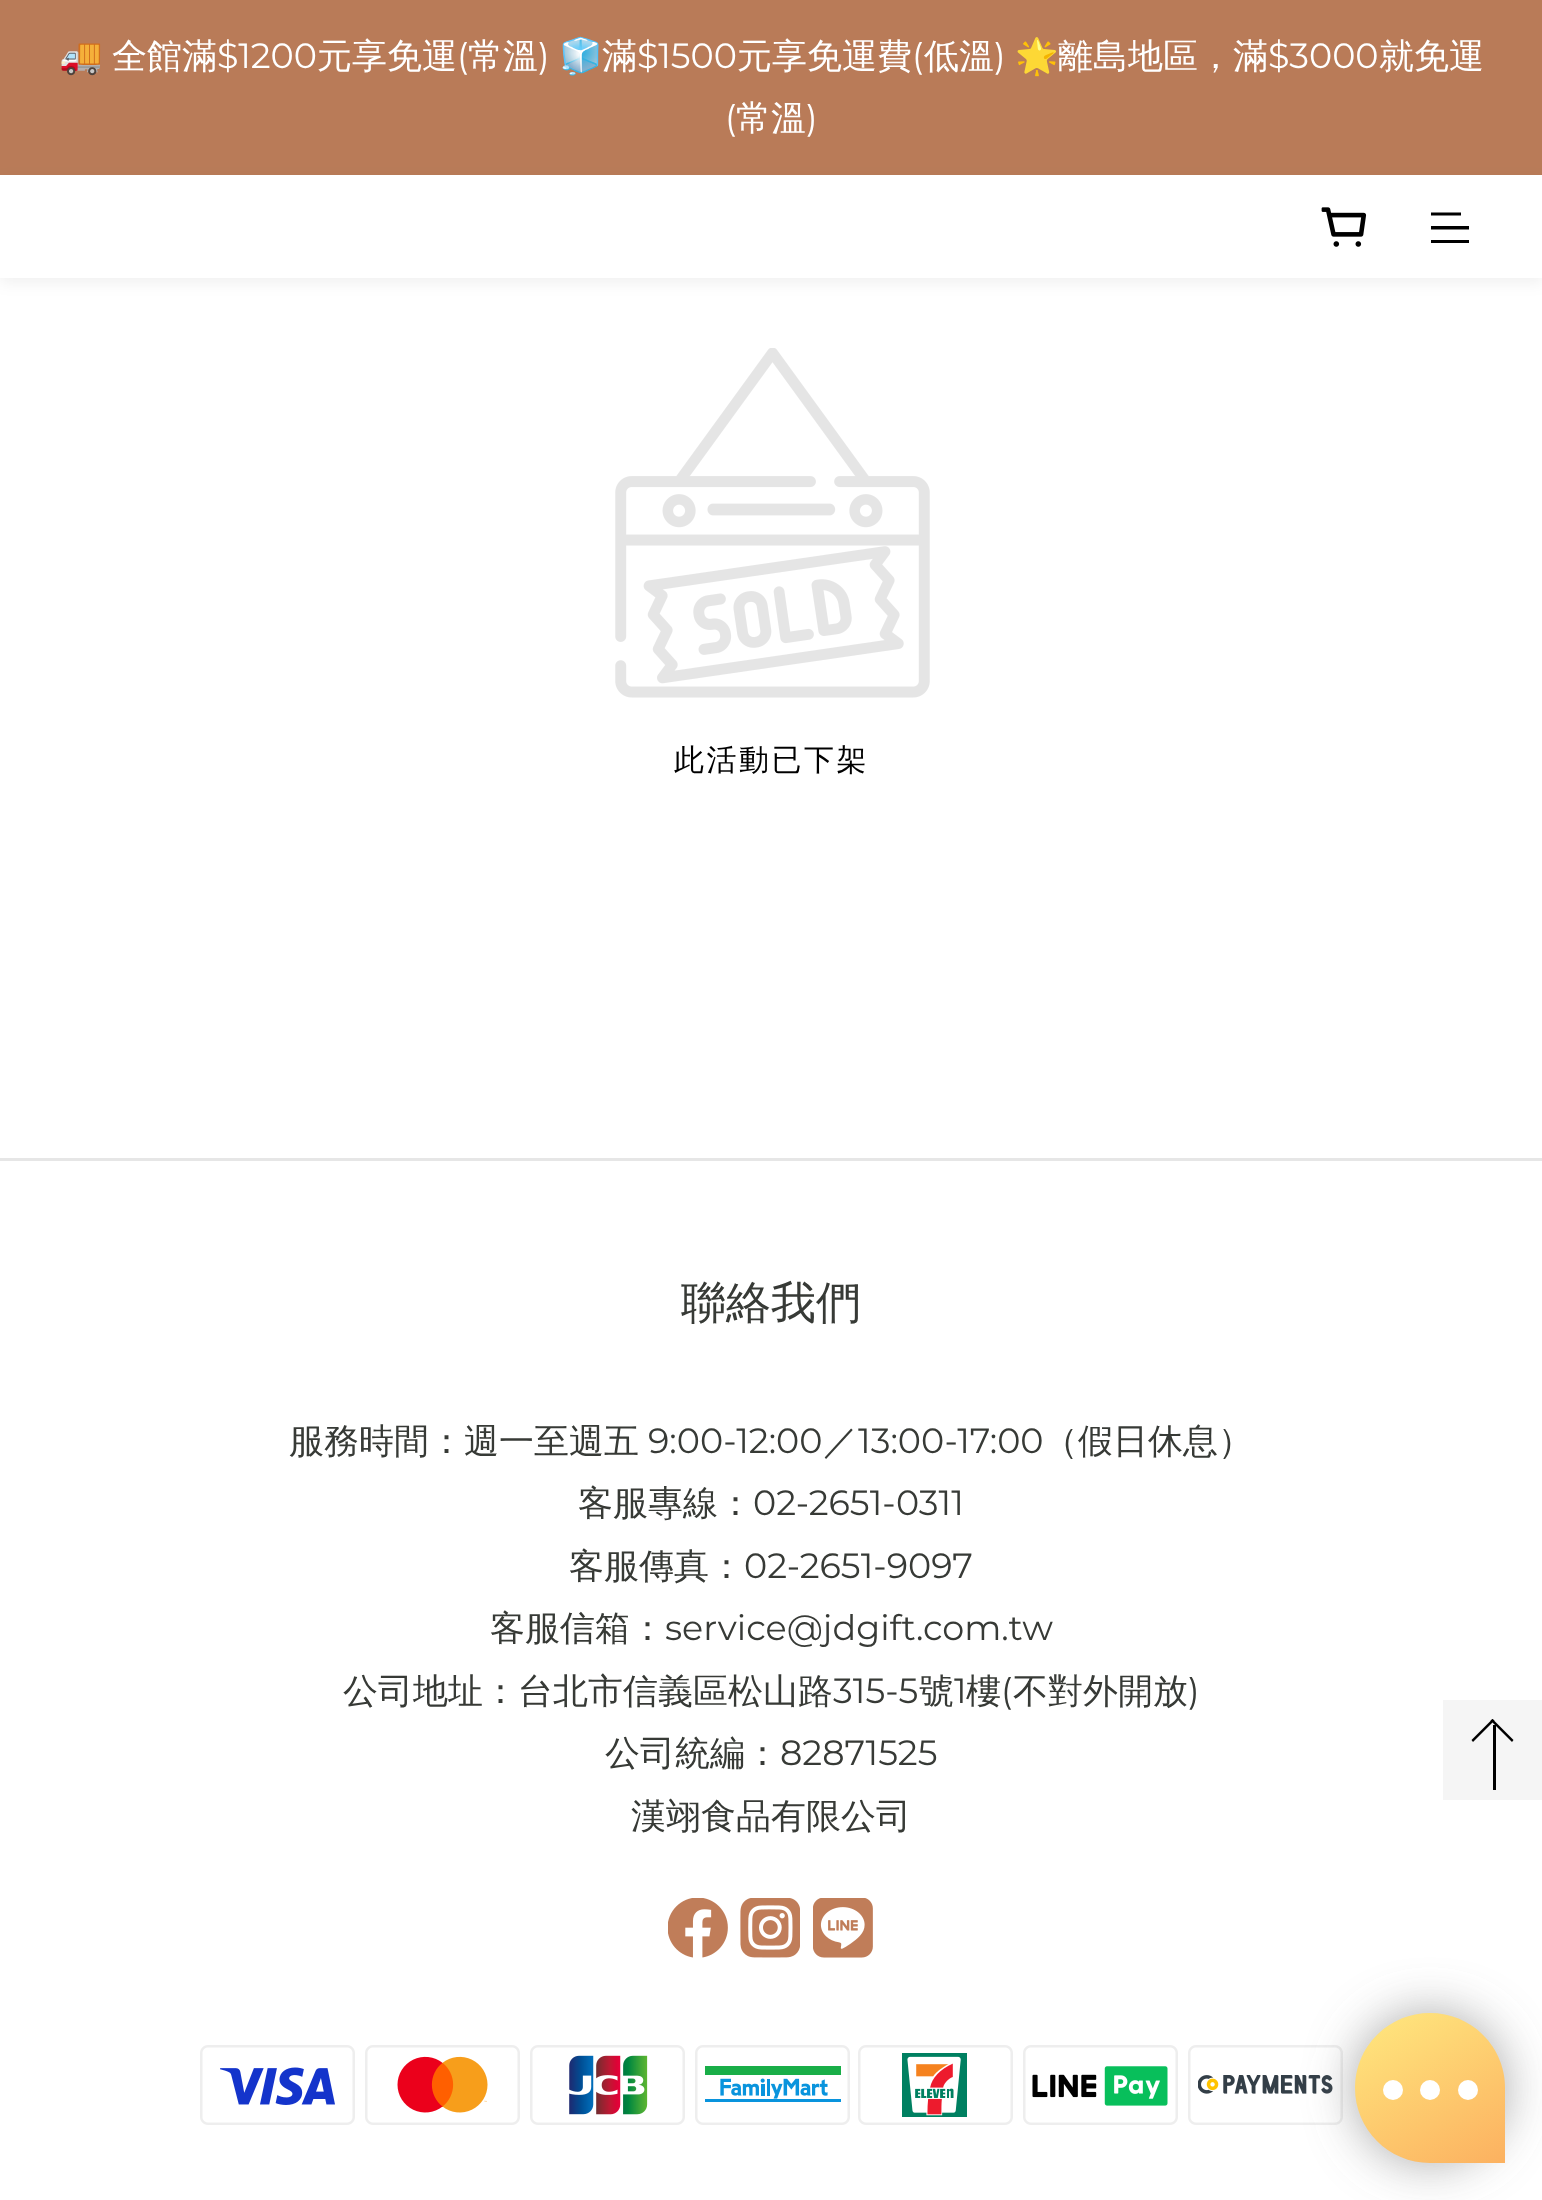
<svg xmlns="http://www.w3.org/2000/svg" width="1542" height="2200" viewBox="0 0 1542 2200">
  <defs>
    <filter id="blur1" x="-50%" y="-200%" width="200%" height="500%"><feGaussianBlur stdDeviation="7.5"/></filter>
    <filter id="blur2" x="-50%" y="-200%" width="200%" height="500%"><feGaussianBlur stdDeviation="25"/></filter>
    <linearGradient id="g1" gradientUnits="userSpaceOnUse" x1="1481" y1="2176" x2="1379" y2="1999"><stop offset="0" stop-color="#fcb160"/><stop offset="1" stop-color="#ffe97f"/></linearGradient>
  </defs>
  <rect width="100%" height="100%" fill="#ffffff"/>
  <rect x="0" y="0" width="1542" height="175" fill="#b97b58"/>
  <text x="59" y="68" font-family="Noto Color Emoji" font-size="35" fill="#ffffff">🚚</text>
  <text x="112" y="68" font-family="WenQuanYi Zen Hei" font-size="35" font-weight="500" fill="#ffffff">全館滿</text>
  <text x="217" y="68" font-family="Montserrat" font-size="35" fill="#ffffff">$1200</text>
  <text x="317" y="68" font-family="WenQuanYi Zen Hei" font-size="35" font-weight="500" fill="#ffffff">元享免運</text>
  <text x="457" y="68" font-family="Montserrat" font-size="35" fill="#ffffff">(</text>
  <text x="468" y="68" font-family="WenQuanYi Zen Hei" font-size="35" font-weight="500" fill="#ffffff">常溫</text>
  <text x="538" y="68" font-family="Montserrat" font-size="35" fill="#ffffff">)</text>
  <text x="559" y="68" font-family="Noto Color Emoji" font-size="35" fill="#ffffff">🧊</text>
  <text x="602" y="68" font-family="WenQuanYi Zen Hei" font-size="35" font-weight="500" fill="#ffffff">滿</text>
  <text x="637" y="68" font-family="Montserrat" font-size="35" fill="#ffffff">$1500</text>
  <text x="737" y="68" font-family="WenQuanYi Zen Hei" font-size="35" font-weight="500" fill="#ffffff">元享免運費</text>
  <text x="912" y="68" font-family="Montserrat" font-size="35" fill="#ffffff">(</text>
  <text x="924" y="68" font-family="WenQuanYi Zen Hei" font-size="35" font-weight="500" fill="#ffffff">低溫</text>
  <text x="994" y="68" font-family="Montserrat" font-size="35" fill="#ffffff">)</text>
  <text x="1015" y="68" font-family="Noto Color Emoji" font-size="35" fill="#ffffff">🌟</text>
  <text x="1058" y="68" font-family="WenQuanYi Zen Hei" font-size="35" font-weight="500" fill="#ffffff">離島地區，滿</text>
  <text x="1268" y="68" font-family="Montserrat" font-size="35" fill="#ffffff">$3000</text>
  <text x="1379" y="68" font-family="WenQuanYi Zen Hei" font-size="35" font-weight="500" fill="#ffffff">就免運</text>
  <text x="725" y="130" font-family="Montserrat" font-size="35" fill="#ffffff">(</text>
  <text x="736" y="130" font-family="WenQuanYi Zen Hei" font-size="35" font-weight="500" fill="#ffffff">常溫</text>
  <text x="806" y="130" font-family="Montserrat" font-size="35" fill="#ffffff">)</text>
  <rect x="0" y="180" width="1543" height="103" fill="#000000" fill-opacity="0.06" filter="url(#blur1)"/>
  <rect x="0" y="175" width="1542" height="103" fill="#ffffff"/>
  <image x="1321" y="207" width="46" height="40" href="img1.png"/>
  <path d="M1469 229.5V226H1431V229.5ZM1461 215.5V212.5H1431V215.5ZM1469 243V240H1431V243Z" fill="#000000"/>
  <image x="615" y="348" width="315" height="350" href="img2.png"/>
  <text x="674" y="770" font-family="WenQuanYi Zen Hei" font-size="30" font-weight="500" letter-spacing="2.5" fill="#000000">此活動已下架</text>
  <rect x="0" y="1158" width="1542" height="3" fill="#e6e6e6"/>
  <text x="681" y="1318" font-family="WenQuanYi Zen Hei" font-size="45" font-weight="500" fill="#373a36">聯絡我們</text>
  <text x="289" y="1453" font-family="WenQuanYi Zen Hei" font-size="35" font-weight="500" fill="#373a36">服務時間：週一至週五</text>
  <text x="648" y="1453" font-family="Montserrat" font-size="35" fill="#373a36">9:00-12:00</text>
  <text x="823" y="1453" font-family="WenQuanYi Zen Hei" font-size="35" font-weight="500" fill="#373a36">／</text>
  <text x="858" y="1453" font-family="Montserrat" font-size="35" fill="#373a36">13:00-17:00</text>
  <text x="1043" y="1453" font-family="WenQuanYi Zen Hei" font-size="35" font-weight="500" fill="#373a36">（假日休息）</text>
  <text x="578" y="1515" font-family="WenQuanYi Zen Hei" font-size="35" font-weight="500" fill="#373a36">客服專線：</text>
  <text x="753" y="1515" font-family="Montserrat" font-size="35" fill="#373a36">02-2651-0311</text>
  <text x="569" y="1578" font-family="WenQuanYi Zen Hei" font-size="35" font-weight="500" fill="#373a36">客服傳真：</text>
  <text x="744" y="1578" font-family="Montserrat" font-size="35" fill="#373a36">02-2651-9097</text>
  <text x="490" y="1640" font-family="WenQuanYi Zen Hei" font-size="35" font-weight="500" fill="#373a36">客服信箱：</text>
  <text x="665" y="1640" font-family="Montserrat" font-size="35" fill="#373a36">service@jdgift.com.tw</text>
  <text x="343" y="1703" font-family="WenQuanYi Zen Hei" font-size="35" font-weight="500" fill="#373a36">公司地址：台北市信義區松山路</text>
  <text x="833" y="1703" font-family="Montserrat" font-size="35" fill="#373a36">315-5</text>
  <text x="919" y="1703" font-family="WenQuanYi Zen Hei" font-size="35" font-weight="500" fill="#373a36">號</text>
  <text x="954" y="1703" font-family="Montserrat" font-size="35" fill="#373a36">1</text>
  <text x="966" y="1703" font-family="WenQuanYi Zen Hei" font-size="35" font-weight="500" fill="#373a36">樓</text>
  <text x="1001" y="1703" font-family="Montserrat" font-size="35" fill="#373a36">(</text>
  <text x="1013" y="1703" font-family="WenQuanYi Zen Hei" font-size="35" font-weight="500" fill="#373a36">不對外開放</text>
  <text x="1188" y="1703" font-family="Montserrat" font-size="35" fill="#373a36">)</text>
  <text x="605" y="1765" font-family="WenQuanYi Zen Hei" font-size="35" font-weight="500" fill="#373a36">公司統編：</text>
  <text x="780" y="1765" font-family="Montserrat" font-size="35" fill="#373a36">82871525</text>
  <text x="631" y="1828" font-family="WenQuanYi Zen Hei" font-size="35" font-weight="500" fill="#373a36">漢翊食品有限公司</text>
  <image x="668" y="1898" width="60" height="60" href="img3.png"/>
  <image x="740" y="1898" width="60" height="60" href="img4.png"/>
  <image x="813" y="1898" width="60" height="60" href="img5.png"/>
  <image x="200" y="2045" width="155" height="80" href="img6.png"/>
  <image x="365" y="2045" width="155" height="80" href="img7.png"/>
  <image x="530" y="2045" width="155" height="80" href="img8.png"/>
  <image x="695" y="2045" width="155" height="80" href="img9.png"/>
  <image x="858" y="2045" width="155" height="80" href="img10.png"/>
  <image x="1023" y="2045" width="155" height="80" href="img11.png"/>
  <image x="1188" y="2045" width="155" height="80" href="img12.png"/>
  <rect x="1443" y="1700" width="99" height="100" fill="#f5f5f5"/>
  <path d="M1492.5 1719L1513.5 1740L1512 1742L1490.5 1720.5Z" fill="#000000"/>
  <path d="M1492.5 1719L1494.5 1720.5L1473 1742L1471.5 1740Z" fill="#000000"/>
  <rect x="1493" y="1725" width="3" height="65" fill="#000000"/>
  <rect x="1355" y="2013" width="150" height="150" rx="75" fill="#777777" fill-opacity="0.64" filter="url(#blur2)"/>
  <path d="M1430 2013C1471.5 2013 1505 2046.5 1505 2088V2163H1430C1388.5 2163 1355 2129.5 1355 2088C1355 2046.5 1388.5 2013 1430 2013Z" fill="url(#g1)"/>
  <circle cx="1393" cy="2090" r="10" fill="#ffffff"/>
  <circle cx="1430" cy="2090" r="10" fill="#ffffff"/>
  <circle cx="1468" cy="2090" r="10" fill="#ffffff"/>
</svg>
